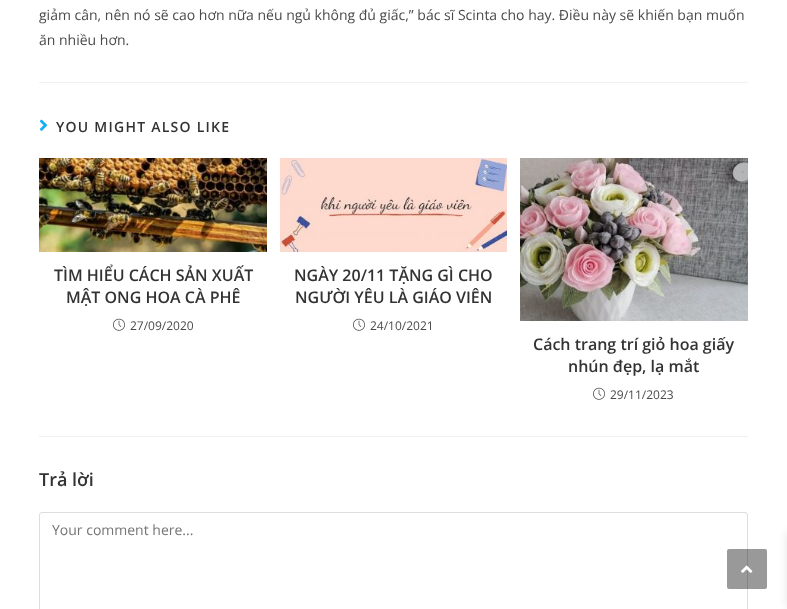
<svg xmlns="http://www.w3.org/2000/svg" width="787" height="609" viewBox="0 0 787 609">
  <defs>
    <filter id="blur1" x="-50%" y="-200%" width="200%" height="500%"><feGaussianBlur stdDeviation="5"/></filter>
  </defs>
  <rect width="100%" height="100%" fill="#ffffff"/>
  <text x="39" y="20" font-family="Open Sans" font-size="14" fill="#4a4a4a">giảm cân, nên nó sẽ cao hơn nữa nếu ngủ không đủ giấc,” bác sĩ Scinta cho hay. Điều này sẽ khiến bạn muốn</text>
  <text x="39" y="45" font-family="Open Sans" font-size="14" fill="#4a4a4a">ăn nhiều hơn.</text>
  <rect x="39" y="82" width="709" height="1" fill="#f1f1f1"/>
  <image x="39" y="119" width="9" height="12" href="img1.png"/>
  <text x="56" y="132" font-family="Open Sans" font-size="14" font-weight="600" letter-spacing="1.25" fill="#333333">YOU MIGHT ALSO LIKE</text>
  <image x="39" y="158" width="228" height="94" href="img2.png"/>
  <text x="54" y="281" font-family="Open Sans" font-size="16" font-weight="600" fill="#333333">TÌM HIỂU CÁCH SẢN XUẤT</text>
  <text x="66" y="303" font-family="Open Sans" font-size="16" font-weight="600" fill="#333333">MẬT ONG HOA CÀ PHÊ</text>
  <image x="113" y="318" width="12" height="13" href="img3.png"/>
  <text x="130" y="330" font-family="Open Sans" font-size="12" fill="#4a4a4a">27/09/2020</text>
  <image x="280" y="158" width="227" height="94" href="img4.png"/>
  <text x="294" y="281" font-family="Open Sans" font-size="16" font-weight="600" fill="#333333">NGÀY 20/11 TẶNG GÌ CHO</text>
  <text x="295" y="303" font-family="Open Sans" font-size="16" font-weight="600" fill="#333333">NGƯỜI YÊU LÀ GIÁO VIÊN</text>
  <image x="353" y="318" width="12" height="13" href="img3.png"/>
  <text x="370" y="330" font-family="Open Sans" font-size="12" fill="#4a4a4a">24/10/2021</text>
  <image x="520" y="158" width="228" height="163" href="img5.png"/>
  <text x="533" y="350" font-family="Open Sans" font-size="16" font-weight="600" fill="#333333">Cách trang trí giỏ hoa giấy</text>
  <text x="568" y="372" font-family="Open Sans" font-size="16" font-weight="600" fill="#333333">nhún đẹp, lạ mắt</text>
  <image x="593" y="387" width="12" height="13" href="img3.png"/>
  <text x="610" y="399" font-family="Open Sans" font-size="12" fill="#4a4a4a">29/11/2023</text>
  <rect x="39" y="436" width="709" height="1" fill="#f1f1f1"/>
  <text x="39" y="486" font-family="Open Sans" font-size="18" font-weight="600" fill="#333333">Trả lời</text>
  <rect x="39.5" y="512.5" width="708" height="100" rx="2.5" fill="none" stroke="#dddddd"/>
  <text x="52" y="535" font-family="Open Sans" font-size="14" fill="#757575">Your comment here...</text>
  <rect x="727" y="549" width="40" height="40" rx="2" fill="#000000" fill-opacity="0.4"/>
  <image x="741" y="565" width="12" height="8" href="img6.png"/>
  <rect x="787" y="532" width="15" height="76" fill="#000000" fill-opacity="0.1" filter="url(#blur1)"/>
</svg>
